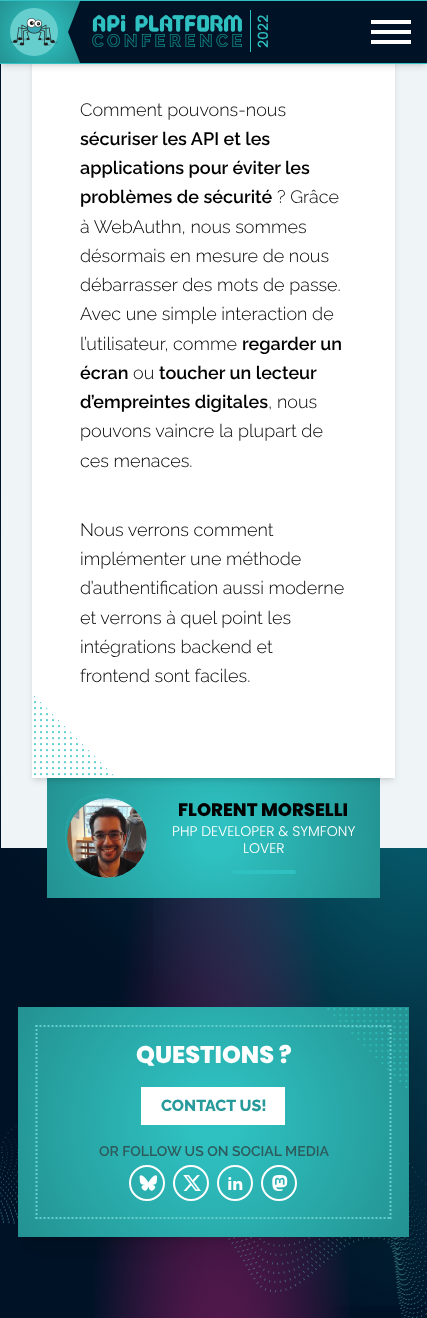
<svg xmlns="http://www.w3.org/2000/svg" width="427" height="1318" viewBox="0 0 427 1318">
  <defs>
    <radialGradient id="g1" gradientUnits="userSpaceOnUse" cx="320" cy="659" r="733"><stop offset="0" stop-color="#033c4e"/><stop offset="0.5" stop-color="#001226"/></radialGradient>
    <radialGradient id="g2" gradientUnits="userSpaceOnUse" cx="0" cy="0" r="1" gradientTransform="matrix(604 0 0 1118 427 791)"><stop offset="0" stop-color="#11e5f0" stop-opacity="0.3"/><stop offset="0.5" stop-color="#11e5f0" stop-opacity="0"/></radialGradient>
    <radialGradient id="g3" gradientUnits="userSpaceOnUse" cx="214" cy="838" r="212"><stop offset="0.08" stop-color="#2fc1c1"/><stop offset="1" stop-color="#218787"/></radialGradient>
    <filter id="blur1" x="-50%" y="-200%" width="200%" height="500%"><feGaussianBlur stdDeviation="2"/></filter>
    <filter id="blur2" x="-50%" y="-200%" width="200%" height="500%"><feGaussianBlur stdDeviation="3"/></filter>
    <radialGradient id="g4" gradientUnits="userSpaceOnUse" cx="40" cy="32" r="61"><stop offset="0.08" stop-color="#000000" stop-opacity="0"/><stop offset="1" stop-color="#000000" stop-opacity="0.3"/></radialGradient>
    <radialGradient id="g5" gradientUnits="userSpaceOnUse" cx="0" cy="0" r="1" gradientTransform="matrix(314 0 0 2982 222 2109)"><stop offset="0" stop-color="#d52189" stop-opacity="0.8"/><stop offset="0.5" stop-color="#d52189" stop-opacity="0"/></radialGradient>
    <filter id="blur3" x="-50%" y="-200%" width="200%" height="500%"><feGaussianBlur stdDeviation="5"/></filter>
    <filter id="blur4" x="-50%" y="-200%" width="200%" height="500%"><feGaussianBlur stdDeviation="12.5"/></filter>
    <radialGradient id="g6" gradientUnits="userSpaceOnUse" cx="214" cy="1122" r="272"><stop offset="0.08" stop-color="#2fc1c1"/><stop offset="1" stop-color="#218787"/></radialGradient>
    <linearGradient id="g7" gradientUnits="userSpaceOnUse" x1="293" y1="1208" x2="410" y2="1004"><stop offset="0.5" stop-color="#ffffff"/><stop offset="0.5" stop-color="#ffffff" stop-opacity="0"/></linearGradient>
  </defs>
  <rect width="100%" height="100%" fill="#ffffff"/>
  <rect x="0" y="64" width="427" height="1254" fill="url(#g1)"/>
  <rect x="1" y="64" width="426" height="784" fill="#eff4f7"/>
  <rect x="153" y="848" width="274" height="458" fill="url(#g2)"/>
  <rect x="47" y="778" width="333" height="120" fill="url(#g3)"/>
  <rect x="34" y="-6" width="359" height="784" fill="#000000" fill-opacity="0.1" filter="url(#blur1)"/>
  <rect x="33" y="-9" width="361" height="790" fill="#000000" fill-opacity="0.1" filter="url(#blur2)"/>
  <rect x="32" y="64" width="363" height="714" fill="#ffffff"/>
  <rect x="2" y="4" width="423" height="60" fill="#000000" fill-opacity="0.1" filter="url(#blur1)"/>
  <rect x="1" y="5" width="425" height="62" fill="#000000" fill-opacity="0.1" filter="url(#blur2)"/>
  <rect x="68" y="1" width="359" height="62" fill="#001226"/>
  <rect x="0" y="0" width="427" height="1" fill="#2fc1c1"/>
  <rect x="0" y="63" width="427" height="1" fill="#2fc1c1"/>
  <path d="M0 1V63H80L68 32L80 1Z" fill="#2fc1c1"/>
  <path d="M0 1V63H80L68 32L80 1Z" fill="url(#g4)"/>
  <circle cx="34" cy="32" r="24" fill="#67cece"/>
  <image x="10" y="18" width="48" height="28" href="img1.png"/>
  <image x="92" y="15" width="150" height="32" href="img2.png"/>
  <rect x="250" y="10" width="1" height="42" fill="#2fc1c1"/>
  <text x="268" y="48" transform="rotate(-90 268 48)" font-family="Poppins" font-size="14" font-weight="500" fill="#2fc1c1">2022</text>
  <rect x="371" y="30" width="40" height="4" fill="#ffffff"/>
  <rect x="371" y="20" width="40" height="4" fill="#ffffff"/>
  <rect x="371" y="40" width="40" height="4" fill="#ffffff"/>
  <rect x="94" y="898" width="256" height="420" fill="url(#g5)"/>
  <text x="80" y="116" font-family="Raleway" font-size="18" font-weight="300" fill="#000000">Comment pouvons-nous</text>
  <text x="80" y="145" font-family="Raleway" font-size="18" font-weight="600" fill="#000000">sécuriser les API et les</text>
  <text x="80" y="174" font-family="Raleway" font-size="18" font-weight="600" fill="#000000">applications pour éviter les</text>
  <text x="80" y="203" font-family="Raleway" font-size="18" font-weight="600" fill="#000000">problèmes de sécurité</text>
  <text x="277" y="203" font-family="Raleway" font-size="18" font-weight="300" fill="#000000">? Grâce</text>
  <text x="80" y="233" font-family="Raleway" font-size="18" font-weight="300" fill="#000000">à WebAuthn, nous sommes</text>
  <text x="80" y="262" font-family="Raleway" font-size="18" font-weight="300" fill="#000000">désormais en mesure de nous</text>
  <text x="80" y="291" font-family="Raleway" font-size="18" font-weight="300" fill="#000000">débarrasser des mots de passe.</text>
  <text x="80" y="320" font-family="Raleway" font-size="18" font-weight="300" fill="#000000">Avec une simple interaction de</text>
  <text x="80" y="350" font-family="Raleway" font-size="18" font-weight="300" fill="#000000">l’utilisateur, comme</text>
  <text x="242" y="350" font-family="Raleway" font-size="18" font-weight="600" fill="#000000">regarder un</text>
  <text x="80" y="379" font-family="Raleway" font-size="18" font-weight="600" fill="#000000">écran</text>
  <text x="133" y="379" font-family="Raleway" font-size="18" font-weight="300" fill="#000000">ou</text>
  <text x="159" y="379" font-family="Raleway" font-size="18" font-weight="600" fill="#000000">toucher un lecteur</text>
  <text x="80" y="408" font-family="Raleway" font-size="18" font-weight="600" fill="#000000">d’empreintes digitales</text>
  <text x="268" y="408" font-family="Raleway" font-size="18" font-weight="300" fill="#000000">, nous</text>
  <text x="80" y="437" font-family="Raleway" font-size="18" font-weight="300" fill="#000000">pouvons vaincre la plupart de</text>
  <text x="80" y="467" font-family="Raleway" font-size="18" font-weight="300" fill="#000000">ces menaces.</text>
  <text x="80" y="536" font-family="Raleway" font-size="18" font-weight="300" fill="#000000">Nous verrons comment</text>
  <text x="80" y="565" font-family="Raleway" font-size="18" font-weight="300" fill="#000000">implémenter une méthode</text>
  <text x="80" y="594" font-family="Raleway" font-size="18" font-weight="300" fill="#000000">d’authentification aussi moderne</text>
  <text x="80" y="624" font-family="Raleway" font-size="18" font-weight="300" fill="#000000">et verrons à quel point les</text>
  <text x="80" y="653" font-family="Raleway" font-size="18" font-weight="300" fill="#000000">intégrations backend et</text>
  <text x="80" y="682" font-family="Raleway" font-size="18" font-weight="300" fill="#000000">frontend sont faciles.</text>
  <image x="34" y="696" width="80" height="80" href="img3.png"/>
  <image x="65" y="794" width="84" height="85" href="img4.png"/>
  <image x="67" y="798" width="80" height="80" href="img5.png"/>
  <text x="178" y="816" font-family="Poppins" font-size="18" font-weight="800" fill="#000000">FLORENT MORSELLI</text>
  <text x="172" y="836" font-family="Poppins" font-size="14" font-weight="300" fill="#ffffff">PHP DEVELOPER &amp; SYMFONY</text>
  <text x="243" y="853" font-family="Poppins" font-size="14" font-weight="300" fill="#ffffff">LOVER</text>
  <rect x="232" y="870" width="64" height="4" rx="2" fill="#2fc1c1"/>
  <image x="0" y="1125" width="427" height="193" href="img11.png"/>
  <rect x="24" y="1021" width="379" height="218" fill="#000000" fill-opacity="0.1" filter="url(#blur3)"/>
  <rect x="23" y="1032" width="381" height="220" fill="#000000" fill-opacity="0.1" filter="url(#blur4)"/>
  <rect x="18" y="1007" width="391" height="230" fill="url(#g6)"/>
  <image x="327" y="1008" width="81" height="80" href="img6.png"/>
  <path d="M35.5 1026H391.5" fill="none" stroke="#67cece" stroke-width="2" stroke-dasharray="2 2"/>
  <path d="M390.5 1025V1219" fill="none" stroke="#67cece" stroke-width="2" stroke-dasharray="2 2"/>
  <path d="M35.5 1218H391.5" fill="none" stroke="#67cece" stroke-width="2" stroke-dasharray="2 2"/>
  <path d="M36.5 1025V1219" fill="none" stroke="#67cece" stroke-width="2" stroke-dasharray="2 2"/>
  <text x="136" y="1063" font-family="Poppins" font-size="24" font-weight="800" fill="#ffffff">QUESTIONS ?</text>
  <rect x="144" y="1090" width="138" height="32" fill="url(#g7)"/>
  <rect x="142.5" y="1088.5" width="141" height="35" fill="none" stroke="#ffffff" stroke-width="3"/>
  <text x="161" y="1111" font-family="Raleway" font-size="16" font-weight="800" fill="#299a9b">CONTACT US!</text>
  <text x="99" y="1156" font-family="Raleway" font-size="14" font-weight="600" fill="#2e5a5c">OR FOLLOW US ON SOCIAL MEDIA</text>
  <circle cx="147" cy="1183" r="17" fill="none" stroke="#ffffff" stroke-width="2"/>
  <image x="139" y="1175" width="19" height="16" href="img7.png"/>
  <circle cx="191" cy="1183" r="17" fill="none" stroke="#ffffff" stroke-width="2"/>
  <image x="183" y="1175" width="18" height="16" href="img8.png"/>
  <circle cx="235" cy="1183" r="17" fill="none" stroke="#ffffff" stroke-width="2"/>
  <image x="228" y="1177" width="15" height="13" href="img9.png"/>
  <circle cx="279" cy="1183" r="17" fill="none" stroke="#ffffff" stroke-width="2"/>
  <image x="272" y="1175" width="16" height="16" href="img10.png"/>
</svg>
